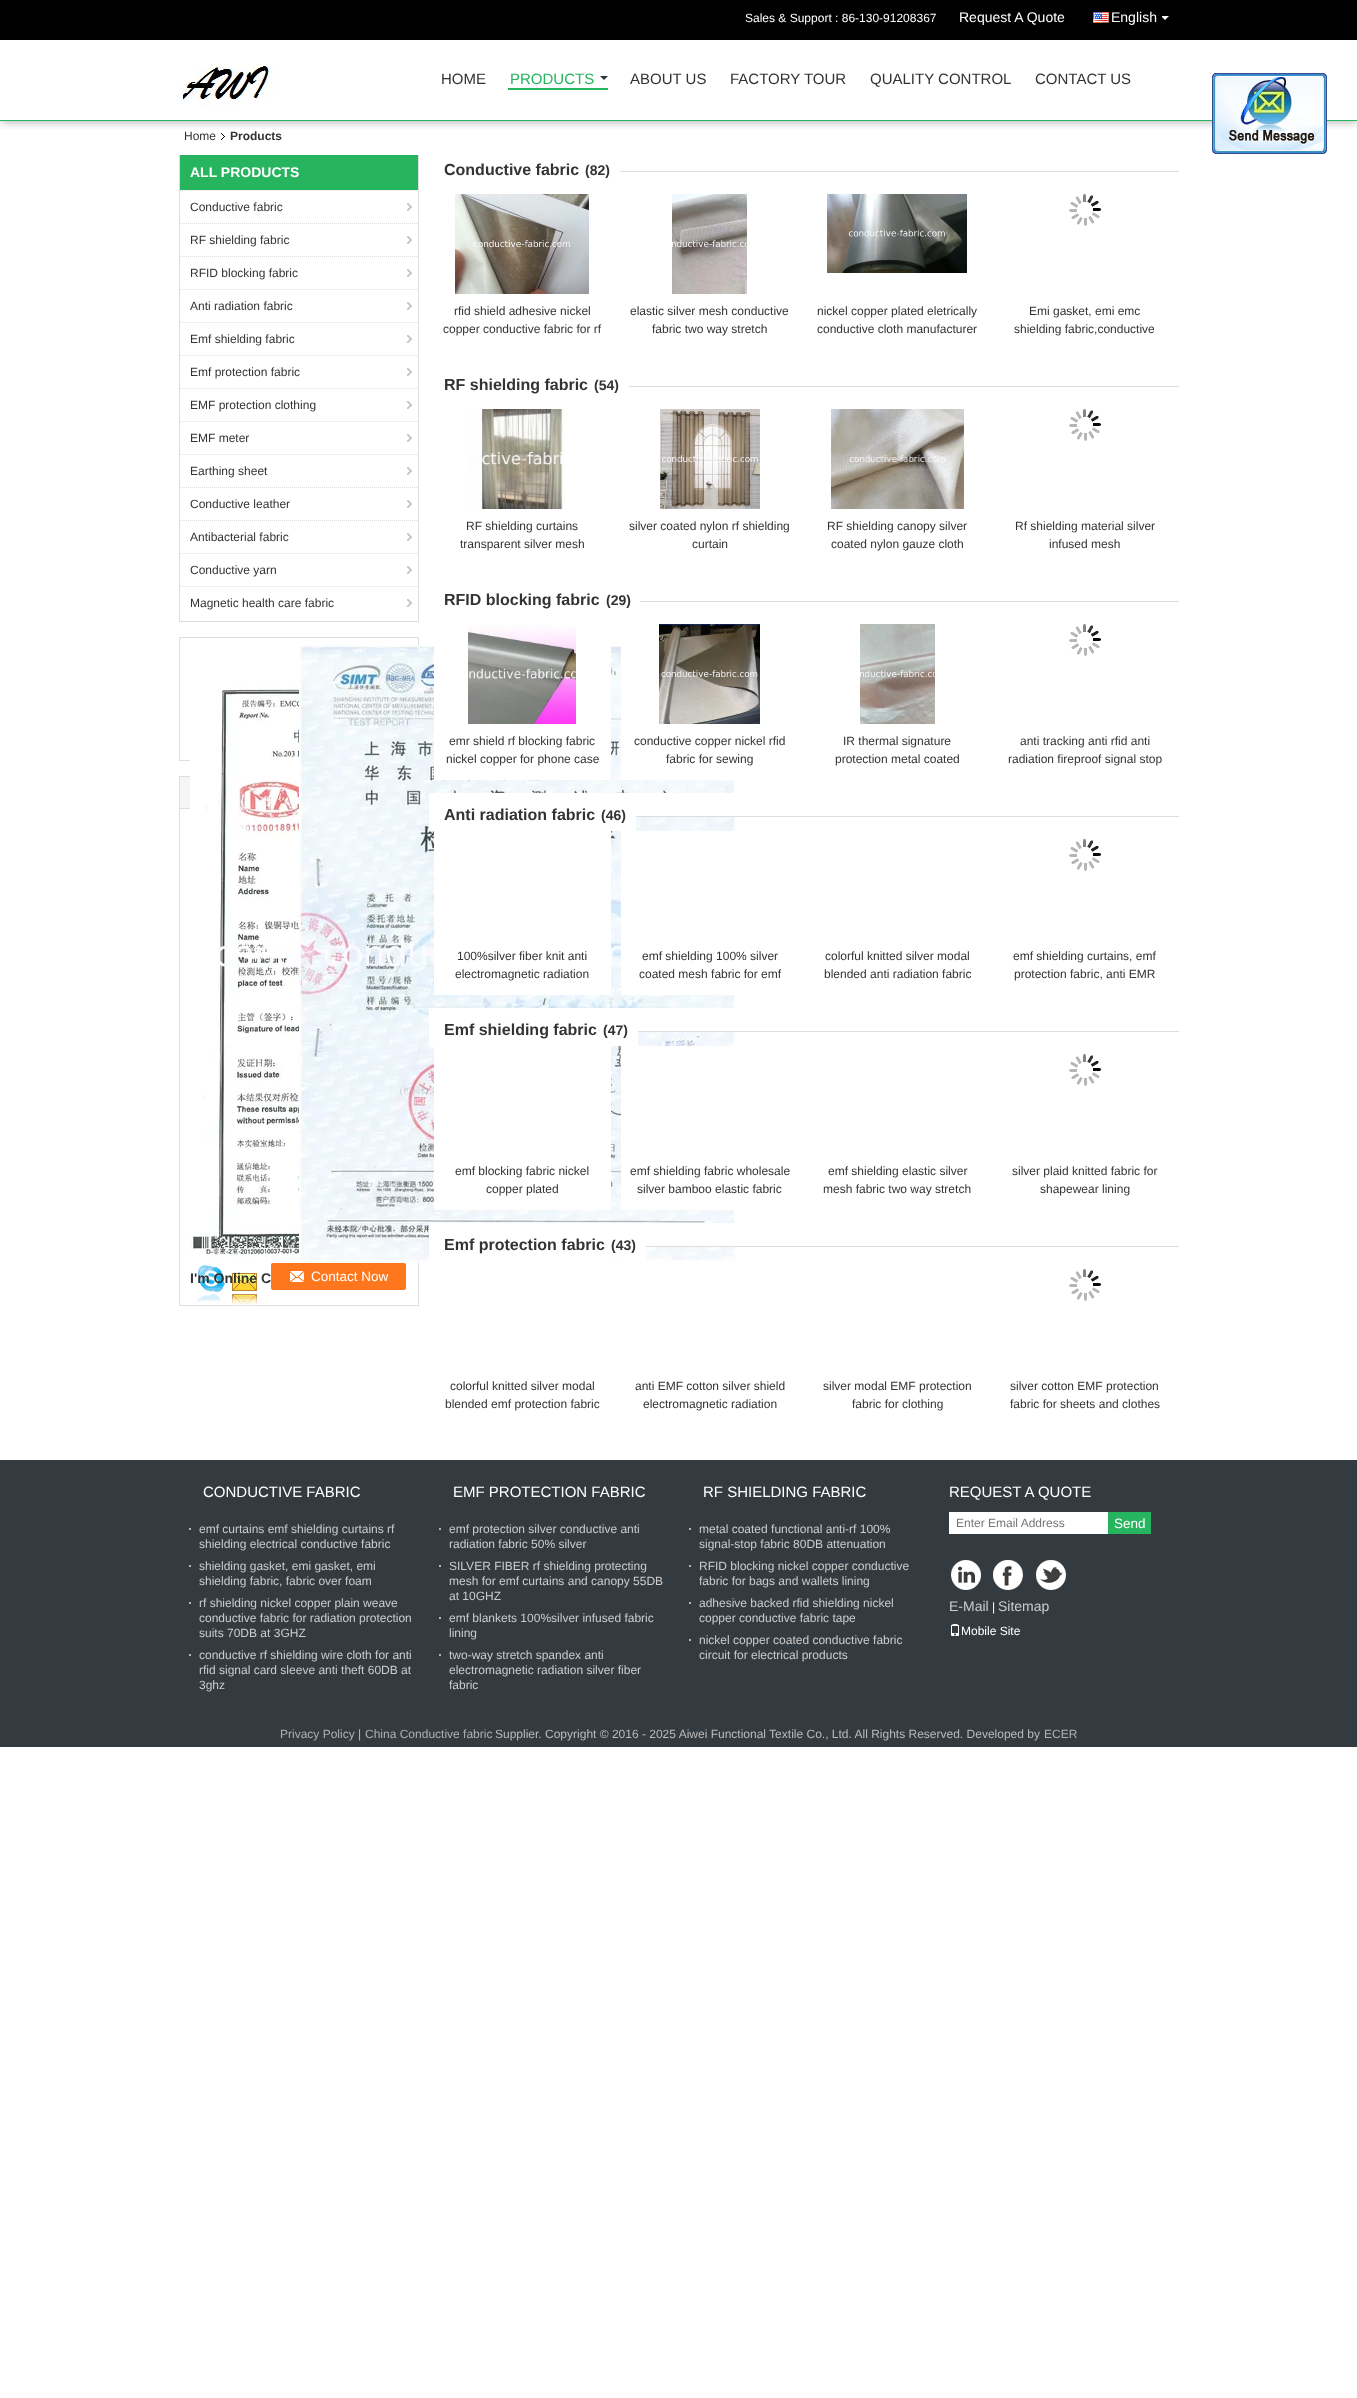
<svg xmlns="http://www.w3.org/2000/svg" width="1357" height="2398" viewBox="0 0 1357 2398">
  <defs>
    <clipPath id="clip1"><rect x="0" y="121" width="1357" height="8"/></clipPath>
    <filter id="blur1" x="-50%" y="-200%" width="200%" height="500%"><feGaussianBlur stdDeviation="5"/></filter>
  </defs>
  <rect width="100%" height="100%" fill="#ffffff"/>
  <g clip-path="url(#clip1)">
    <rect x="1" y="1" width="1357" height="121" fill="#000000" fill-opacity="0.3" filter="url(#blur1)"/>
  </g>
  <rect x="0" y="120" width="1357" height="1" fill="#27b45f"/>
  <rect x="0" y="0" width="1357" height="40" fill="#000000"/>
  <text x="745" y="22" font-family="Liberation Sans" font-size="12" fill="#ffffff">Sales &amp; Support : 86-130-91208367</text>
  <text x="959" y="22" font-family="Liberation Sans" font-size="14" fill="#ffffff">Request A Quote</text>
  <image x="1093" y="12" width="16" height="11" href="img1.png"/>
  <text x="1111" y="22" font-family="Liberation Sans" font-size="14" fill="#ffffff">English</text>
  <image x="1162" y="16" width="7" height="4" href="img2.png"/>
  <image x="179" y="65" width="96" height="42" href="img3.png"/>
  <text x="441" y="84" font-family="Liberation Sans" font-size="15" fill="#333333">HOME</text>
  <rect x="508" y="88" width="100" height="2" fill="#27b45f"/>
  <text x="510" y="84" font-family="Liberation Sans" font-size="15" fill="#27b45f">PRODUCTS</text>
  <path d="M600 76H608L604 80Z" fill="#333333"/>
  <text x="630" y="84" font-family="Liberation Sans" font-size="15" fill="#333333">ABOUT US</text>
  <text x="730" y="84" font-family="Liberation Sans" font-size="15" fill="#333333">FACTORY TOUR</text>
  <text x="870" y="84" font-family="Liberation Sans" font-size="15" fill="#333333">QUALITY CONTROL</text>
  <text x="1035" y="84" font-family="Liberation Sans" font-size="15" fill="#333333">CONTACT US</text>
  <image x="1212" y="73" width="115" height="81" href="img4.png"/>
  <text x="184" y="140" font-family="Liberation Sans" font-size="12" fill="#333333">Home</text>
  <image x="221" y="133" width="4" height="7" href="img5.png"/>
  <text x="230" y="140" font-family="Liberation Sans" font-size="12" font-weight="bold" fill="#333333">Products</text>
  <rect x="418" y="155" width="1" height="467" fill="#dedede"/>
  <rect x="179" y="621" width="240" height="1" fill="#dedede"/>
  <rect x="179" y="155" width="1" height="467" fill="#dedede"/>
  <rect x="180" y="155" width="238" height="35" fill="#27b45f"/>
  <text x="190" y="177" font-family="Liberation Sans" font-size="14" font-weight="bold" fill="#ffffff">ALL PRODUCTS</text>
  <image x="407" y="203" width="5" height="8" href="img6.png"/>
  <path d="M180 190.5H420" fill="none" stroke="#dedede" stroke-dasharray="1 1"/>
  <text x="190" y="211" font-family="Liberation Sans" font-size="12" fill="#333333">Conductive fabric</text>
  <image x="407" y="236" width="5" height="8" href="img6.png"/>
  <path d="M180 223.5H420" fill="none" stroke="#dedede" stroke-dasharray="1 1"/>
  <text x="190" y="244" font-family="Liberation Sans" font-size="12" fill="#333333">RF shielding fabric</text>
  <image x="407" y="269" width="5" height="8" href="img6.png"/>
  <path d="M180 256.5H420" fill="none" stroke="#dedede" stroke-dasharray="1 1"/>
  <text x="190" y="277" font-family="Liberation Sans" font-size="12" fill="#333333">RFID blocking fabric</text>
  <image x="407" y="302" width="5" height="8" href="img6.png"/>
  <path d="M180 289.5H420" fill="none" stroke="#dedede" stroke-dasharray="1 1"/>
  <text x="190" y="310" font-family="Liberation Sans" font-size="12" fill="#333333">Anti radiation fabric</text>
  <image x="407" y="335" width="5" height="8" href="img6.png"/>
  <path d="M180 322.5H420" fill="none" stroke="#dedede" stroke-dasharray="1 1"/>
  <text x="190" y="343" font-family="Liberation Sans" font-size="12" fill="#333333">Emf shielding fabric</text>
  <image x="407" y="368" width="5" height="8" href="img6.png"/>
  <path d="M180 355.5H420" fill="none" stroke="#dedede" stroke-dasharray="1 1"/>
  <text x="190" y="376" font-family="Liberation Sans" font-size="12" fill="#333333">Emf protection fabric</text>
  <image x="407" y="401" width="5" height="8" href="img6.png"/>
  <path d="M180 388.5H420" fill="none" stroke="#dedede" stroke-dasharray="1 1"/>
  <text x="190" y="409" font-family="Liberation Sans" font-size="12" fill="#333333">EMF protection clothing</text>
  <image x="407" y="434" width="5" height="8" href="img6.png"/>
  <path d="M180 421.5H420" fill="none" stroke="#dedede" stroke-dasharray="1 1"/>
  <text x="190" y="442" font-family="Liberation Sans" font-size="12" fill="#333333">EMF meter</text>
  <image x="407" y="467" width="5" height="8" href="img6.png"/>
  <path d="M180 454.5H420" fill="none" stroke="#dedede" stroke-dasharray="1 1"/>
  <text x="190" y="475" font-family="Liberation Sans" font-size="12" fill="#333333">Earthing sheet</text>
  <image x="407" y="500" width="5" height="8" href="img6.png"/>
  <path d="M180 487.5H420" fill="none" stroke="#dedede" stroke-dasharray="1 1"/>
  <text x="190" y="508" font-family="Liberation Sans" font-size="12" fill="#333333">Conductive leather</text>
  <image x="407" y="533" width="5" height="8" href="img6.png"/>
  <path d="M180 520.5H420" fill="none" stroke="#dedede" stroke-dasharray="1 1"/>
  <text x="190" y="541" font-family="Liberation Sans" font-size="12" fill="#333333">Antibacterial fabric</text>
  <image x="407" y="566" width="5" height="8" href="img6.png"/>
  <path d="M180 553.5H420" fill="none" stroke="#dedede" stroke-dasharray="1 1"/>
  <text x="190" y="574" font-family="Liberation Sans" font-size="12" fill="#333333">Conductive yarn</text>
  <image x="407" y="599" width="5" height="8" href="img6.png"/>
  <path d="M180 586.5H420" fill="none" stroke="#dedede" stroke-dasharray="1 1"/>
  <text x="190" y="607" font-family="Liberation Sans" font-size="12" fill="#333333">Magnetic health care fabric</text>
  <rect x="179.5" y="637.5" width="239" height="123" fill="none" stroke="#dedede"/>
  <rect x="179.5" y="776.5" width="239" height="529" fill="none" stroke="#dedede"/>
  <image x="190" y="645" width="109" height="618" href="img7.png"/>
  <image x="299" y="645" width="437" height="618" href="img8.png"/>
  <image x="196" y="1265" width="29" height="38" href="img9.png"/>
  <image x="232" y="1273" width="25" height="32" href="img10.png"/>
  <rect x="180" y="777" width="10" height="31" fill="#f5f5f5"/>
  <rect x="180" y="808" width="10" height="1" fill="#dedede"/>
  <text x="190" y="1283" font-family="Liberation Sans" font-size="14" font-weight="bold" fill="#333333">I'm Online C</text>
  <rect x="271" y="1263" width="135" height="27" rx="2" fill="#ff771c"/>
  <image x="290" y="1271" width="14" height="11" href="img11.png"/>
  <text x="311" y="1281" font-family="Liberation Sans" font-size="13.5" fill="#ffffff">Contact Now</text>
  <rect x="620" y="171" width="559" height="1" fill="#dddddd"/>
  <text x="444" y="175" font-family="Liberation Sans" font-size="16" font-weight="bold" fill="#333333">Conductive fabric</text>
  <text x="585" y="175" font-family="Liberation Sans" font-size="14" font-weight="bold" fill="#333333">(82)</text>
  <image x="455" y="194" width="134" height="100" href="img12.png"/>
  <text x="454" y="315" font-family="Liberation Sans" font-size="12" fill="#333333">rfid shield adhesive nickel</text>
  <text x="443" y="333" font-family="Liberation Sans" font-size="12" fill="#333333">copper conductive fabric for rf</text>
  <image x="672" y="194" width="75" height="100" href="img13.png"/>
  <text x="630" y="315" font-family="Liberation Sans" font-size="12" fill="#333333">elastic silver mesh conductive</text>
  <text x="652" y="333" font-family="Liberation Sans" font-size="12" fill="#333333">fabric two way stretch</text>
  <image x="827" y="194" width="140" height="79" href="img14.png"/>
  <text x="817" y="315" font-family="Liberation Sans" font-size="12" fill="#333333">nickel copper plated eletrically</text>
  <text x="817" y="333" font-family="Liberation Sans" font-size="12" fill="#333333">conductive cloth manufacturer</text>
  <image x="1069" y="194" width="32" height="32" href="img15.png"/>
  <text x="1029" y="315" font-family="Liberation Sans" font-size="12" fill="#333333">Emi gasket, emi emc</text>
  <text x="1014" y="333" font-family="Liberation Sans" font-size="12" fill="#333333">shielding fabric,conductive</text>
  <rect x="629" y="386" width="550" height="1" fill="#dddddd"/>
  <text x="444" y="390" font-family="Liberation Sans" font-size="16" font-weight="bold" fill="#333333">RF shielding fabric</text>
  <text x="594" y="390" font-family="Liberation Sans" font-size="14" font-weight="bold" fill="#333333">(54)</text>
  <image x="469" y="409" width="96" height="100" href="img16.png"/>
  <text x="466" y="530" font-family="Liberation Sans" font-size="12" fill="#333333">RF shielding curtains</text>
  <text x="460" y="548" font-family="Liberation Sans" font-size="12" fill="#333333">transparent silver mesh</text>
  <image x="660" y="409" width="100" height="100" href="img17.png"/>
  <text x="629" y="530" font-family="Liberation Sans" font-size="12" fill="#333333">silver coated nylon rf shielding</text>
  <text x="692" y="548" font-family="Liberation Sans" font-size="12" fill="#333333">curtain</text>
  <image x="831" y="409" width="133" height="100" href="img18.png"/>
  <text x="827" y="530" font-family="Liberation Sans" font-size="12" fill="#333333">RF shielding canopy silver</text>
  <text x="831" y="548" font-family="Liberation Sans" font-size="12" fill="#333333">coated nylon gauze cloth</text>
  <image x="1069" y="409" width="32" height="32" href="img15.png"/>
  <text x="1015" y="530" font-family="Liberation Sans" font-size="12" fill="#333333">Rf shielding material silver</text>
  <text x="1049" y="548" font-family="Liberation Sans" font-size="12" fill="#333333">infused mesh</text>
  <rect x="640" y="601" width="539" height="1" fill="#dddddd"/>
  <text x="444" y="605" font-family="Liberation Sans" font-size="16" font-weight="bold" fill="#333333">RFID blocking fabric</text>
  <text x="606" y="605" font-family="Liberation Sans" font-size="14" font-weight="bold" fill="#333333">(29)</text>
  <rect x="434" y="645" width="177" height="135" fill="#ffffff"/>
  <image x="468" y="625" width="108" height="99" href="img19.png"/>
  <text x="449" y="745" font-family="Liberation Sans" font-size="12" fill="#333333">emr shield rf blocking fabric</text>
  <text x="446" y="763" font-family="Liberation Sans" font-size="12" fill="#333333">nickel copper for phone case</text>
  <rect x="621" y="645" width="115" height="135" fill="#ffffff"/>
  <image x="659" y="624" width="101" height="100" href="img20.png"/>
  <text x="634" y="745" font-family="Liberation Sans" font-size="12" fill="#333333">conductive copper nickel rfid</text>
  <text x="666" y="763" font-family="Liberation Sans" font-size="12" fill="#333333">fabric for sewing</text>
  <image x="860" y="624" width="75" height="100" href="img21.png"/>
  <text x="843" y="745" font-family="Liberation Sans" font-size="12" fill="#333333">IR thermal signature</text>
  <text x="835" y="763" font-family="Liberation Sans" font-size="12" fill="#333333">protection metal coated</text>
  <image x="1069" y="624" width="32" height="32" href="img15.png"/>
  <text x="1020" y="745" font-family="Liberation Sans" font-size="12" fill="#333333">anti tracking anti rfid anti</text>
  <text x="1008" y="763" font-family="Liberation Sans" font-size="12" fill="#333333">radiation fireproof signal stop</text>
  <rect x="429" y="793" width="307" height="23" fill="#ffffff"/>
  <rect x="636" y="816" width="543" height="1" fill="#dddddd"/>
  <rect x="429" y="816" width="207" height="15" fill="#ffffff"/>
  <text x="444" y="820" font-family="Liberation Sans" font-size="16" font-weight="bold" fill="#333333">Anti radiation fabric</text>
  <text x="601" y="820" font-family="Liberation Sans" font-size="14" font-weight="bold" fill="#333333">(46)</text>
  <rect x="434" y="831" width="177" height="164" fill="#ffffff"/>
  <text x="457" y="960" font-family="Liberation Sans" font-size="12" fill="#333333">100%silver fiber knit anti</text>
  <text x="455" y="978" font-family="Liberation Sans" font-size="12" fill="#333333">electromagnetic radiation</text>
  <rect x="621" y="831" width="115" height="164" fill="#ffffff"/>
  <text x="642" y="960" font-family="Liberation Sans" font-size="12" fill="#333333">emf shielding 100% silver</text>
  <text x="639" y="978" font-family="Liberation Sans" font-size="12" fill="#333333">coated mesh fabric for emf</text>
  <text x="825" y="960" font-family="Liberation Sans" font-size="12" fill="#333333">colorful knitted silver modal</text>
  <text x="824" y="978" font-family="Liberation Sans" font-size="12" fill="#333333">blended anti radiation fabric</text>
  <image x="1069" y="839" width="32" height="32" href="img15.png"/>
  <text x="1013" y="960" font-family="Liberation Sans" font-size="12" fill="#333333">emf shielding curtains, emf</text>
  <text x="1014" y="978" font-family="Liberation Sans" font-size="12" fill="#333333">protection fabric, anti EMR</text>
  <rect x="429" y="1008" width="307" height="23" fill="#ffffff"/>
  <rect x="638" y="1031" width="541" height="1" fill="#dddddd"/>
  <rect x="429" y="1031" width="209" height="15" fill="#ffffff"/>
  <text x="444" y="1035" font-family="Liberation Sans" font-size="16" font-weight="bold" fill="#333333">Emf shielding fabric</text>
  <text x="603" y="1035" font-family="Liberation Sans" font-size="14" font-weight="bold" fill="#333333">(47)</text>
  <rect x="434" y="1046" width="177" height="164" fill="#ffffff"/>
  <text x="455" y="1175" font-family="Liberation Sans" font-size="12" fill="#333333">emf blocking fabric nickel</text>
  <text x="486" y="1193" font-family="Liberation Sans" font-size="12" fill="#333333">copper plated</text>
  <rect x="621" y="1046" width="115" height="164" fill="#ffffff"/>
  <text x="630" y="1175" font-family="Liberation Sans" font-size="12" fill="#333333">emf shielding fabric wholesale</text>
  <text x="637" y="1193" font-family="Liberation Sans" font-size="12" fill="#333333">silver bamboo elastic fabric</text>
  <text x="828" y="1175" font-family="Liberation Sans" font-size="12" fill="#333333">emf shielding elastic silver</text>
  <text x="823" y="1193" font-family="Liberation Sans" font-size="12" fill="#333333">mesh fabric two way stretch</text>
  <image x="1069" y="1054" width="32" height="32" href="img15.png"/>
  <text x="1012" y="1175" font-family="Liberation Sans" font-size="12" fill="#333333">silver plaid knitted fabric for</text>
  <text x="1040" y="1193" font-family="Liberation Sans" font-size="12" fill="#333333">shapewear lining</text>
  <rect x="429" y="1223" width="307" height="23" fill="#ffffff"/>
  <rect x="646" y="1246" width="533" height="1" fill="#dddddd"/>
  <rect x="429" y="1246" width="217" height="15" fill="#ffffff"/>
  <text x="444" y="1250" font-family="Liberation Sans" font-size="16" font-weight="bold" fill="#333333">Emf protection fabric</text>
  <text x="611" y="1250" font-family="Liberation Sans" font-size="14" font-weight="bold" fill="#333333">(43)</text>
  <rect x="437" y="1261" width="174" height="2" fill="#ffffff"/>
  <text x="450" y="1390" font-family="Liberation Sans" font-size="12" fill="#333333">colorful knitted silver modal</text>
  <text x="445" y="1408" font-family="Liberation Sans" font-size="12" fill="#333333">blended emf protection fabric</text>
  <rect x="626" y="1261" width="109" height="2" fill="#ffffff"/>
  <text x="635" y="1390" font-family="Liberation Sans" font-size="12" fill="#333333">anti EMF cotton silver shield</text>
  <text x="643" y="1408" font-family="Liberation Sans" font-size="12" fill="#333333">electromagnetic radiation</text>
  <text x="823" y="1390" font-family="Liberation Sans" font-size="12" fill="#333333">silver modal EMF protection</text>
  <text x="852" y="1408" font-family="Liberation Sans" font-size="12" fill="#333333">fabric for clothing</text>
  <image x="1069" y="1269" width="32" height="32" href="img15.png"/>
  <text x="1010" y="1390" font-family="Liberation Sans" font-size="12" fill="#333333">silver cotton EMF protection</text>
  <text x="1010" y="1408" font-family="Liberation Sans" font-size="12" fill="#333333">fabric for sheets and clothes</text>
  <rect x="0" y="1460" width="1357" height="287" fill="#333b41"/>
  <text x="203" y="1497" font-family="Liberation Sans" font-size="15" fill="#ffffff">CONDUCTIVE FABRIC</text>
  <circle cx="190" cy="1529" r="1" fill="#dddddd"/>
  <text x="199" y="1533" font-family="Liberation Sans" font-size="12" fill="#cccccc">emf curtains emf shielding curtains rf</text>
  <text x="199" y="1548" font-family="Liberation Sans" font-size="12" fill="#cccccc">shielding electrical conductive fabric</text>
  <circle cx="190" cy="1566" r="1" fill="#dddddd"/>
  <text x="199" y="1570" font-family="Liberation Sans" font-size="12" fill="#cccccc">shielding gasket, emi gasket, emi</text>
  <text x="199" y="1585" font-family="Liberation Sans" font-size="12" fill="#cccccc">shielding fabric, fabric over foam</text>
  <circle cx="190" cy="1603" r="1" fill="#dddddd"/>
  <text x="199" y="1607" font-family="Liberation Sans" font-size="12" fill="#cccccc">rf shielding nickel copper plain weave</text>
  <text x="199" y="1622" font-family="Liberation Sans" font-size="12" fill="#cccccc">conductive fabric for radiation protection</text>
  <text x="199" y="1637" font-family="Liberation Sans" font-size="12" fill="#cccccc">suits 70DB at 3GHZ</text>
  <circle cx="190" cy="1655" r="1" fill="#dddddd"/>
  <text x="199" y="1659" font-family="Liberation Sans" font-size="12" fill="#cccccc">conductive rf shielding wire cloth for anti</text>
  <text x="199" y="1674" font-family="Liberation Sans" font-size="12" fill="#cccccc">rfid signal card sleeve anti theft 60DB at</text>
  <text x="199" y="1689" font-family="Liberation Sans" font-size="12" fill="#cccccc">3ghz</text>
  <text x="453" y="1497" font-family="Liberation Sans" font-size="15" fill="#ffffff">EMF PROTECTION FABRIC</text>
  <circle cx="440" cy="1529" r="1" fill="#dddddd"/>
  <text x="449" y="1533" font-family="Liberation Sans" font-size="12" fill="#cccccc">emf protection silver conductive anti</text>
  <text x="449" y="1548" font-family="Liberation Sans" font-size="12" fill="#cccccc">radiation fabric 50% silver</text>
  <circle cx="440" cy="1566" r="1" fill="#dddddd"/>
  <text x="449" y="1570" font-family="Liberation Sans" font-size="12" fill="#cccccc">SILVER FIBER rf shielding protecting</text>
  <text x="449" y="1585" font-family="Liberation Sans" font-size="12" fill="#cccccc">mesh for emf curtains and canopy 55DB</text>
  <text x="449" y="1600" font-family="Liberation Sans" font-size="12" fill="#cccccc">at 10GHZ</text>
  <circle cx="440" cy="1618" r="1" fill="#dddddd"/>
  <text x="449" y="1622" font-family="Liberation Sans" font-size="12" fill="#cccccc">emf blankets 100%silver infused fabric</text>
  <text x="449" y="1637" font-family="Liberation Sans" font-size="12" fill="#cccccc">lining</text>
  <circle cx="440" cy="1655" r="1" fill="#dddddd"/>
  <text x="449" y="1659" font-family="Liberation Sans" font-size="12" fill="#cccccc">two-way stretch spandex anti</text>
  <text x="449" y="1674" font-family="Liberation Sans" font-size="12" fill="#cccccc">electromagnetic radiation silver fiber</text>
  <text x="449" y="1689" font-family="Liberation Sans" font-size="12" fill="#cccccc">fabric</text>
  <text x="703" y="1497" font-family="Liberation Sans" font-size="15" fill="#ffffff">RF SHIELDING FABRIC</text>
  <circle cx="690" cy="1529" r="1" fill="#dddddd"/>
  <text x="699" y="1533" font-family="Liberation Sans" font-size="12" fill="#cccccc">metal coated functional anti-rf 100%</text>
  <text x="699" y="1548" font-family="Liberation Sans" font-size="12" fill="#cccccc">signal-stop fabric 80DB attenuation</text>
  <circle cx="690" cy="1566" r="1" fill="#dddddd"/>
  <text x="699" y="1570" font-family="Liberation Sans" font-size="12" fill="#cccccc">RFID blocking nickel copper conductive</text>
  <text x="699" y="1585" font-family="Liberation Sans" font-size="12" fill="#cccccc">fabric for bags and wallets lining</text>
  <circle cx="690" cy="1603" r="1" fill="#dddddd"/>
  <text x="699" y="1607" font-family="Liberation Sans" font-size="12" fill="#cccccc">adhesive backed rfid shielding nickel</text>
  <text x="699" y="1622" font-family="Liberation Sans" font-size="12" fill="#cccccc">copper conductive fabric tape</text>
  <circle cx="690" cy="1640" r="1" fill="#dddddd"/>
  <text x="699" y="1644" font-family="Liberation Sans" font-size="12" fill="#cccccc">nickel copper coated conductive fabric</text>
  <text x="699" y="1659" font-family="Liberation Sans" font-size="12" fill="#cccccc">circuit for electrical products</text>
  <text x="949" y="1497" font-family="Liberation Sans" font-size="15" fill="#ffffff">REQUEST A QUOTE</text>
  <rect x="949" y="1512" width="159" height="22" fill="#ffffff"/>
  <text x="956" y="1527" font-family="Liberation Sans" font-size="12" fill="#757575">Enter Email Address</text>
  <rect x="1108" y="1512" width="43" height="22" fill="#27b45f"/>
  <text x="1114" y="1528" font-family="Liberation Sans" font-size="13.5" fill="#ffffff">Send</text>
  <image x="951" y="1560" width="30" height="30" href="img22.png"/>
  <image x="993" y="1560" width="30" height="30" href="img23.png"/>
  <image x="1036" y="1560" width="30" height="30" href="img24.png"/>
  <text x="949" y="1611" font-family="Liberation Sans" font-size="14" fill="#cccccc">E-Mail</text>
  <text x="992" y="1611" font-family="Liberation Sans" font-size="12" fill="#ffffff">|</text>
  <text x="998" y="1611" font-family="Liberation Sans" font-size="14" fill="#cccccc">Sitemap</text>
  <image x="951" y="1624" width="8" height="12" href="img25.png"/>
  <text x="961" y="1635" font-family="Liberation Sans" font-size="12" fill="#ffffff">Mobile Site</text>
  <text x="280" y="1738" font-family="Liberation Sans" font-size="12" fill="#adb1b3">Privacy Policy</text>
  <text x="358" y="1738" font-family="Liberation Sans" font-size="12" fill="#bbbbbb">|</text>
  <text x="365" y="1738" font-family="Liberation Sans" font-size="12" fill="#adb1b3">China Conductive fabric</text>
  <text x="495" y="1738" font-family="Liberation Sans" font-size="12" fill="#bbbbbb">Supplier. Copyright © 2016 - 2025 Aiwei Functional Textile Co., Ltd. All Rights Reserved. Developed by</text>
  <text x="1044" y="1738" font-family="Liberation Sans" font-size="12" fill="#adb1b3">ECER</text>
</svg>
